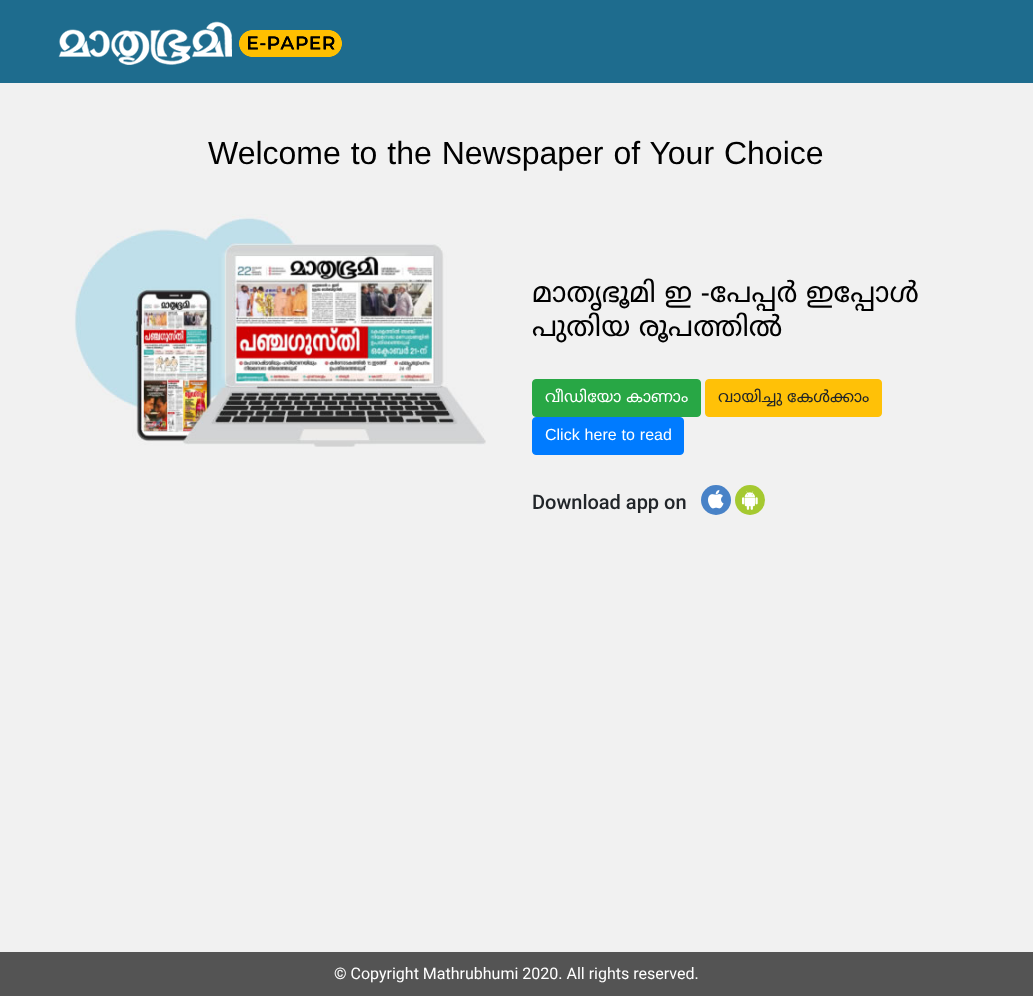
<svg xmlns="http://www.w3.org/2000/svg" width="1033" height="996" viewBox="0 0 1033 996">
  <rect width="100%" height="100%" fill="#f1f1f1"/>
  <rect x="0" y="0" width="1033" height="83" fill="#1e6c8e"/>
  <image x="58" y="21" width="284" height="44" href="img1.png"/>
  <text x="208" y="164" word-spacing="1" font-family="Liberation Sans" font-size="32" fill="#000000">Welcome to the Newspaper of Your Choice</text>
  <image x="74" y="214" width="412" height="233" href="img2.png"/>
  <text x="532" y="302" font-family="Noto Sans Malayalam" font-size="28" fill="#000000">മാതൃഭൂമി ഇ -പേപ്പർ ഇപ്പോൾ</text>
  <text x="532" y="336" font-family="Noto Sans Malayalam" font-size="28" fill="#000000">പുതിയ രൂപത്തിൽ</text>
  <rect x="532.5" y="379.5" width="168" height="37" rx="3.5" fill="#28a745" stroke="#28a745"/>
  <text x="545" y="402" font-family="Noto Sans Malayalam" font-size="16" fill="#ffffff">വീഡിയോ കാണാം</text>
  <rect x="705.5" y="379.5" width="176" height="37" rx="3.5" fill="#ffc107" stroke="#ffc107"/>
  <text x="718" y="402" font-family="Noto Sans Malayalam" font-size="16" fill="#212529">വായിച്ചു കേൾക്കാം</text>
  <rect x="532.5" y="417.5" width="151" height="37" rx="3.5" fill="#007bff" stroke="#007bff"/>
  <text x="545" y="440" word-spacing="0.5" font-family="Liberation Sans" font-size="16" fill="#ffffff">Click here to read</text>
  <text x="532" y="509" font-family="Roboto" font-size="20" font-weight="500" fill="#212529">Download app on</text>
  <circle cx="716" cy="500" r="15" fill="#4882c7"/>
  <image x="708" y="489" width="16" height="20" href="img3.png"/>
  <circle cx="750" cy="500" r="15" fill="#a5c930"/>
  <image x="742" y="491" width="16" height="19" href="img4.png"/>
  <rect x="0" y="952" width="1033" height="44" fill="#545454"/>
  <text x="334" y="979" font-family="Roboto" font-size="16" fill="#ffffff">© Copyright Mathrubhumi 2020. All rights reserved.</text>
</svg>
